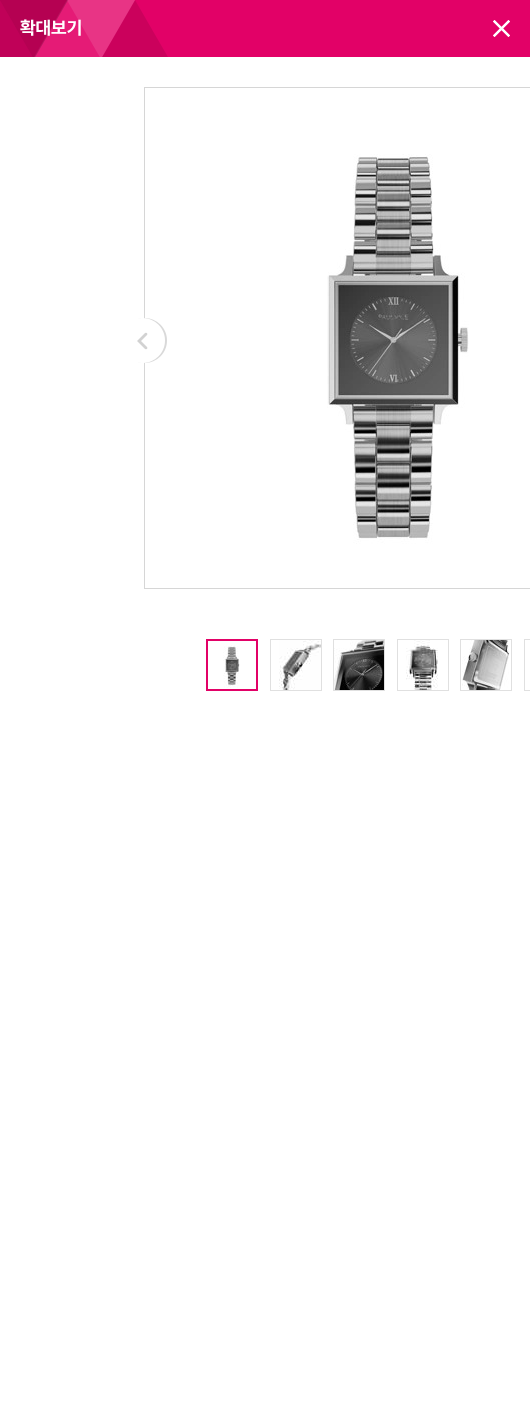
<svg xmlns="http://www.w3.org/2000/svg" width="530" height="1421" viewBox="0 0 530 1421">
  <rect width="100%" height="100%" fill="#ffffff"/>
  <rect x="168" y="0" width="362" height="57" fill="#e20167"/>
  <image x="0" y="0" width="168" height="57" href="img1.png"/>
  <text x="20" y="34" font-family="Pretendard" font-size="18" font-weight="bold" fill="#ffffff">확대보기</text>
  <image x="493" y="20" width="17" height="17" href="img2.png"/>
  <image x="493" y="20" width="17" height="17" href="img3.png"/>
  <rect x="144.5" y="87.5" width="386" height="501" fill="none" stroke="#d6d6d6"/>
  <image x="327" y="154" width="142" height="390" href="img4.png"/>
  <image x="137" y="318" width="30" height="45" href="img5.png"/>
  <rect x="207" y="640" width="50" height="50" fill="none" stroke="#e20167" stroke-width="2"/>
  <image x="223" y="645" width="17" height="43" href="img6.png"/>
  <rect x="270.5" y="639.5" width="51" height="51" fill="none" stroke="#e0e0e0"/>
  <image x="279" y="640" width="42" height="50" href="img7.png"/>
  <rect x="333.5" y="639.5" width="51" height="51" fill="none" stroke="#e0e0e0"/>
  <image x="334" y="640" width="50" height="50" href="img8.png"/>
  <rect x="397.5" y="639.5" width="51" height="51" fill="none" stroke="#e0e0e0"/>
  <image x="406" y="640" width="32" height="50" href="img9.png"/>
  <rect x="460.5" y="639.5" width="51" height="51" fill="none" stroke="#e0e0e0"/>
  <image x="462" y="640" width="47" height="50" href="img10.png"/>
  <rect x="524.5" y="639.5" width="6" height="51" fill="none" stroke="#e0e0e0"/>
</svg>
